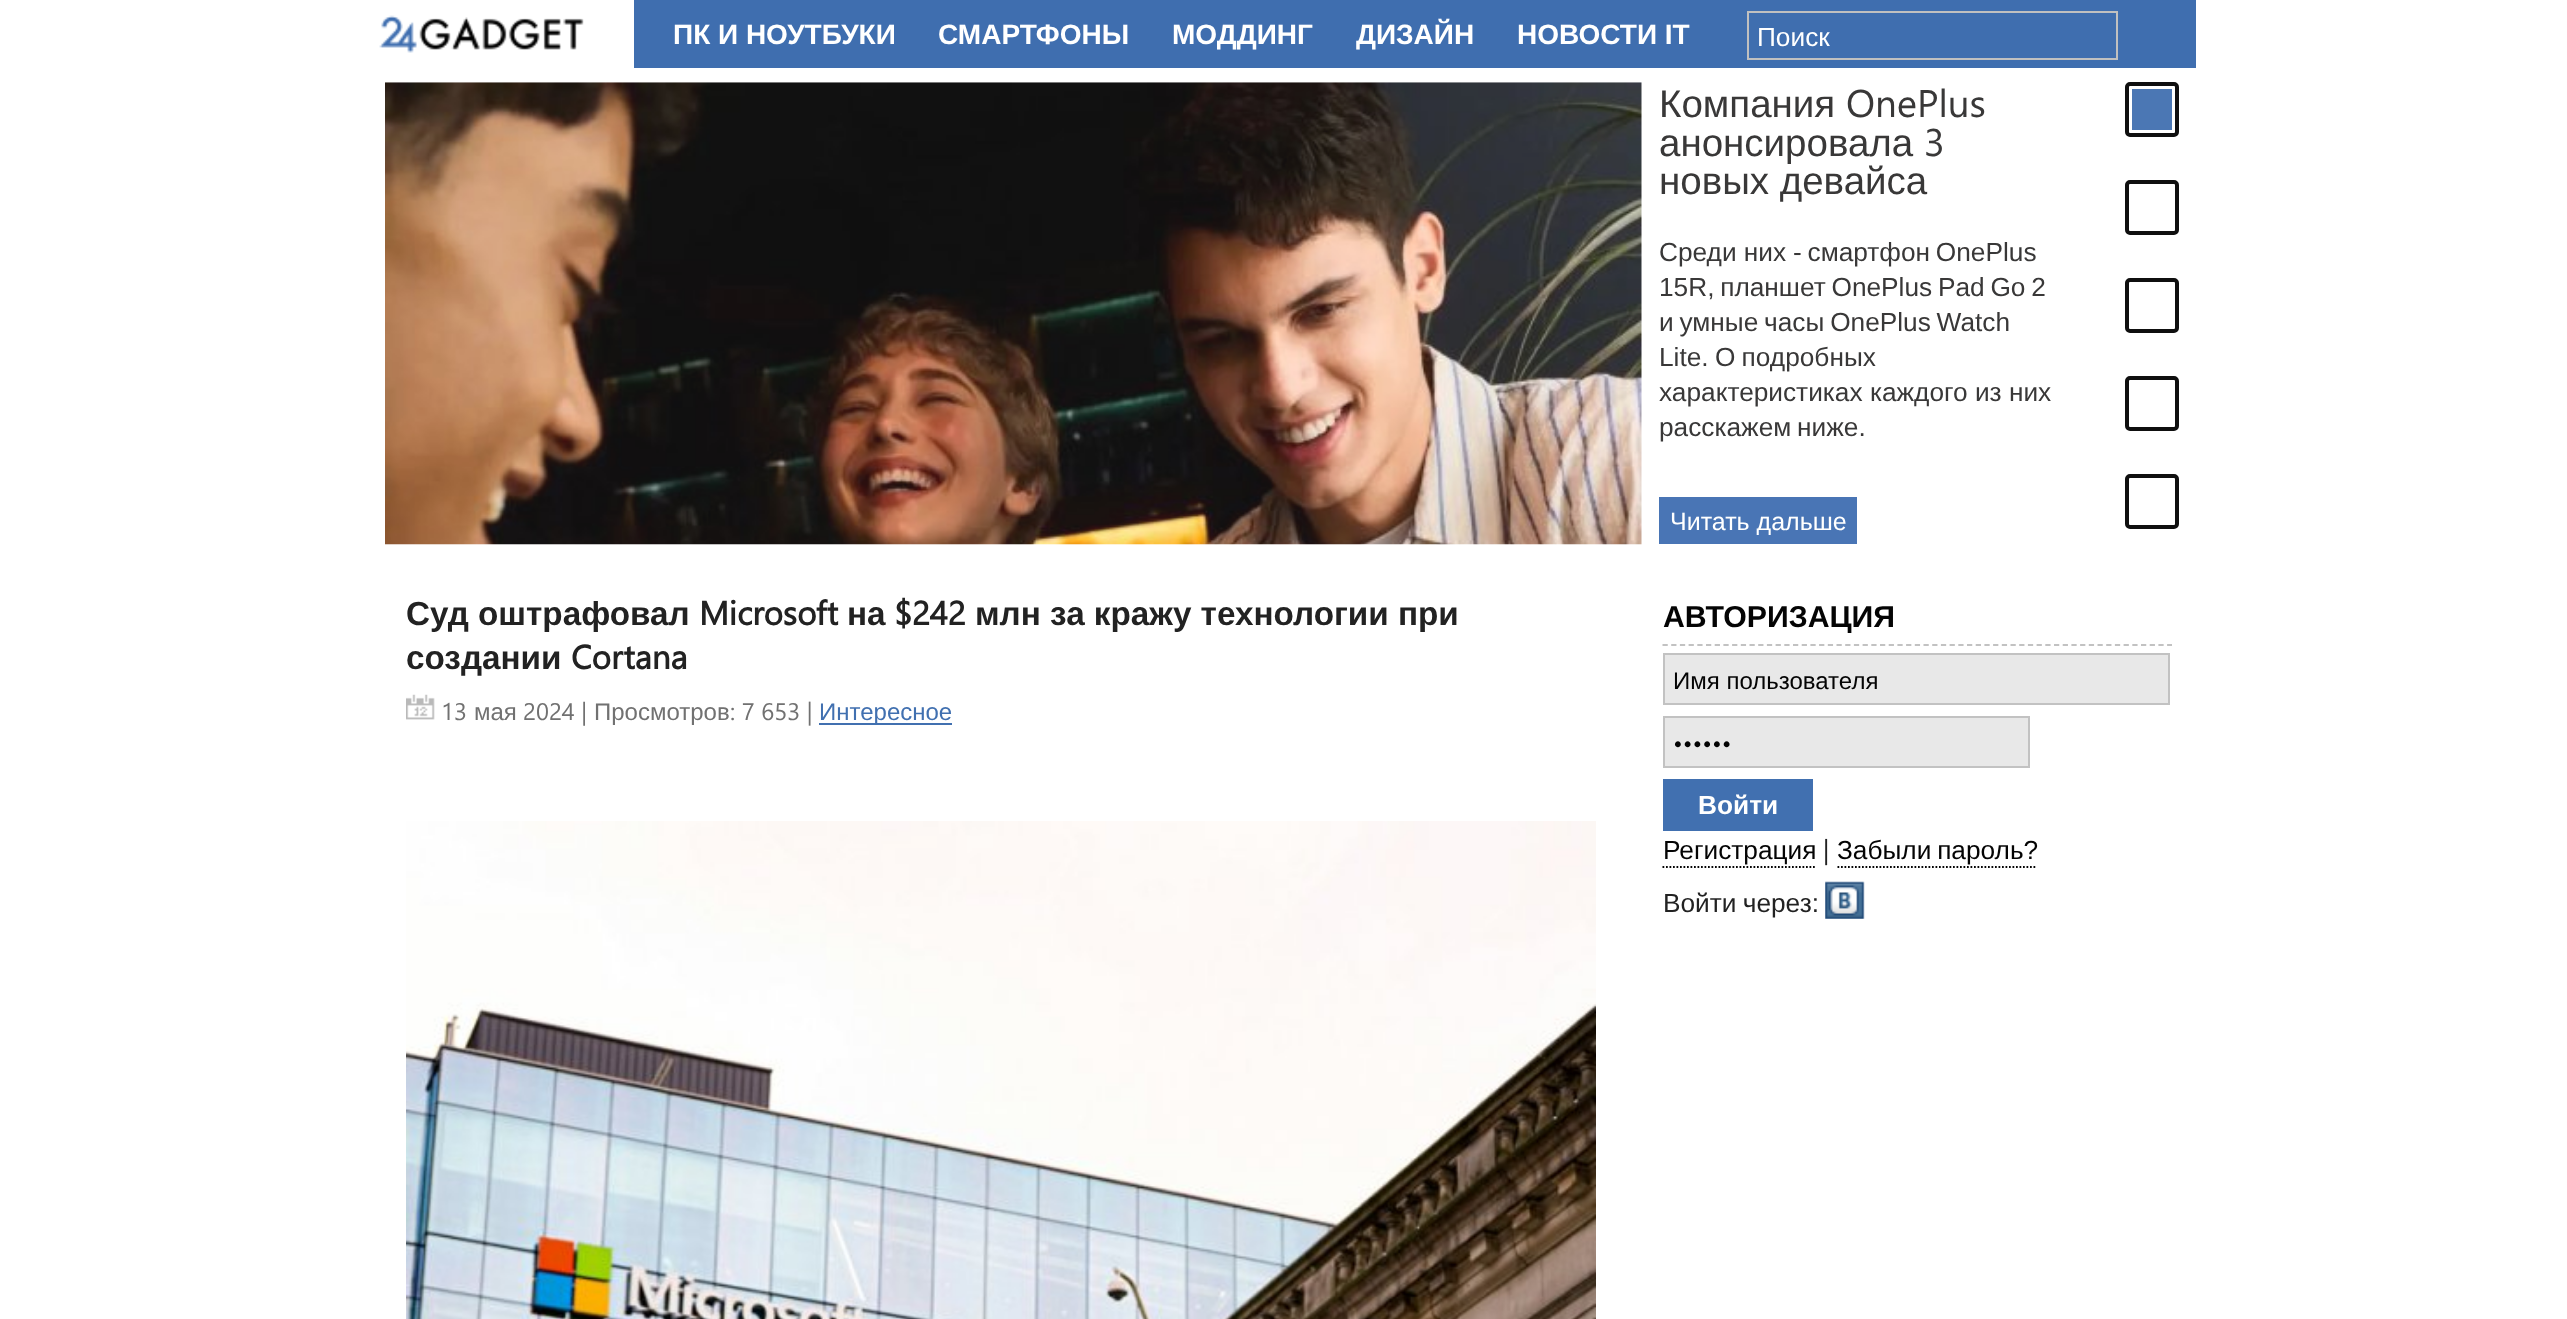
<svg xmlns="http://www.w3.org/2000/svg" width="2567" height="1319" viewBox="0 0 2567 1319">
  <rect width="100%" height="100%" fill="#ffffff"/>
  <rect x="634" y="0" width="1562" height="68" fill="#3f6eaf"/>
  <image x="379" y="15" width="205" height="38" href="img1.png"/>
  <text x="673" y="44" font-family="Liberation Sans" font-size="28" font-weight="bold" fill="#ffffff">ПК И НОУТБУКИ</text>
  <text x="938" y="44" font-family="Liberation Sans" font-size="28" font-weight="bold" fill="#ffffff">СМАРТФОНЫ</text>
  <text x="1172" y="44" font-family="Liberation Sans" font-size="28" font-weight="bold" fill="#ffffff">МОДДИНГ</text>
  <text x="1356" y="44" font-family="Liberation Sans" font-size="28" font-weight="bold" fill="#ffffff">ДИЗАЙН</text>
  <text x="1517" y="44" font-family="Liberation Sans" font-size="28" font-weight="bold" fill="#ffffff">НОВОСТИ IT</text>
  <rect x="1748" y="12" width="369" height="47" fill="none" stroke="#c0c0c0" stroke-width="2"/>
  <text x="1757" y="46" font-family="Liberation Sans" font-size="26.25" fill="#ffffff">Поиск</text>
  <image x="385" y="82" width="1257" height="463" href="img3.png"/>
  <image x="1269" y="304" width="25" height="23" href="img2.png"/>
  <text x="1659" y="117" font-family="Liberation Sans" font-size="38.5" fill="#393838">Компания</text>
  <text x="1846" y="117" font-family="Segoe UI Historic" font-size="38.5" fill="#393838">OnePlus</text>
  <text x="1659" y="156" font-family="Liberation Sans" font-size="38.5" fill="#393838">анонсировала</text>
  <text x="1924" y="156" font-family="Segoe UI Historic" font-size="38.5" fill="#393838">3</text>
  <text x="1659" y="194" font-family="Liberation Sans" font-size="38.5" fill="#393838">новых девайса</text>
  <text x="1659" y="261" font-family="Liberation Sans" font-size="26.25" fill="#393838">Среди них</text>
  <text x="1793" y="261" word-spacing="-1.5" font-family="Liberation Sans" font-size="26.25" fill="#393838">- смартфон OnePlus</text>
  <text x="1659" y="296" word-spacing="-1.5" font-family="Liberation Sans" font-size="26.25" fill="#393838">15R, планшет OnePlus Pad Go 2</text>
  <text x="1659" y="331" word-spacing="-1.5" font-family="Liberation Sans" font-size="26.25" fill="#393838">и умные часы OnePlus Watch</text>
  <text x="1659" y="366" word-spacing="-1" font-family="Liberation Sans" font-size="26.25" fill="#393838">Lite. О подробных</text>
  <text x="1659" y="401" font-family="Liberation Sans" font-size="26.25" fill="#393838">характеристиках каждого из них</text>
  <text x="1659" y="436" word-spacing="-1.5" font-family="Liberation Sans" font-size="26.25" fill="#393838">расскажем ниже.</text>
  <rect x="1659" y="497" width="198" height="47" fill="#4975b5"/>
  <text x="1670" y="530" font-family="Liberation Sans" font-size="25" fill="#ffffff">Читать дальше</text>
  <rect x="2127" y="84" width="50" height="51" rx="3" fill="none" stroke="#0f0f0f" stroke-width="4"/>
  <rect x="2132" y="89" width="40" height="41" fill="#4b77b4"/>
  <rect x="2127" y="182" width="50" height="51" rx="3" fill="none" stroke="#0f0f0f" stroke-width="4"/>
  <rect x="2127" y="280" width="50" height="51" rx="3" fill="none" stroke="#0f0f0f" stroke-width="4"/>
  <rect x="2127" y="378" width="50" height="51" rx="3" fill="none" stroke="#0f0f0f" stroke-width="4"/>
  <rect x="2127" y="476" width="50" height="51" rx="3" fill="none" stroke="#0f0f0f" stroke-width="4"/>
  <text x="406" y="625" font-family="Liberation Sans" font-size="33.25" font-weight="bold" fill="#222222">Суд оштрафовал</text>
  <text x="699" y="625" font-family="Segoe UI Historic" font-size="33.25" font-weight="bold" fill="#222222">Microsoft</text>
  <text x="847" y="625" font-family="Liberation Sans" font-size="33.25" font-weight="bold" fill="#222222">на</text>
  <text x="894" y="625" font-family="Segoe UI Historic" font-size="33.25" font-weight="bold" fill="#222222">$242</text>
  <text x="975" y="625" font-family="Liberation Sans" font-size="33.25" font-weight="bold" fill="#222222">млн за кражу технологии при</text>
  <text x="406" y="669" font-family="Liberation Sans" font-size="33.25" font-weight="bold" fill="#222222">создании</text>
  <text x="571" y="669" font-family="Segoe UI Historic" font-size="33.25" font-weight="bold" fill="#222222">Cortana</text>
  <image x="406" y="694" width="29" height="26" href="img4.png"/>
  <text x="441" y="720" font-family="Segoe UI Historic" font-size="24" fill="#717171">13</text>
  <text x="474" y="720" font-family="Liberation Sans" font-size="24" fill="#717171">мая</text>
  <text x="523" y="720" font-family="Segoe UI Historic" font-size="24" fill="#717171">2024 |</text>
  <text x="594" y="720" font-family="Liberation Sans" font-size="24" fill="#717171">Просмотров</text>
  <text x="730" y="720" font-family="Segoe UI Historic" font-size="24" fill="#717171">: 7 653 |</text>
  <rect x="819" y="723" width="133" height="2" fill="#4170b0"/>
  <text x="819" y="720" font-family="Liberation Sans" font-size="24" fill="#4170b0">Интересное</text>
  <image x="406" y="821" width="1190" height="498" href="img5.png"/>
  <path d="M1662.5 645H2172" fill="none" stroke="#c2c2c2" stroke-width="1.8" stroke-dasharray="5.25 3.45"/>
  <text x="1663" y="627" font-family="Liberation Sans" font-size="30.25" font-weight="bold" fill="#040404">АВТОРИЗАЦИЯ</text>
  <rect x="1664" y="654" width="505" height="50" fill="#e8e8e8" stroke="#c2c2c2" stroke-width="2"/>
  <text x="1673" y="689" font-family="Liberation Sans" font-size="24" fill="#040404">Имя пользователя</text>
  <rect x="1664" y="717" width="365" height="50" fill="#e8e8e8" stroke="#c2c2c2" stroke-width="2"/>
  <text x="1673" y="752" font-family="Segoe UI Historic" font-size="24" fill="#040404">••••••</text>
  <rect x="1663" y="779" width="150" height="52" fill="#4170b0"/>
  <text x="1698" y="814" font-family="Liberation Sans" font-size="26.25" font-weight="bold" fill="#ffffff">Войти</text>
  <text x="1663" y="859" font-family="Liberation Sans" font-size="26.25" fill="#040404">Регистрация</text>
  <path d="M1662.5 867H1816.5" fill="none" stroke="#040404" stroke-width="1.8" stroke-dasharray="1.75 1.75"/>
  <text x="1823" y="859" font-family="Segoe UI Historic" font-size="26.25" fill="#222222">|</text>
  <text x="1837" y="859" word-spacing="-1.5" font-family="Liberation Sans" font-size="26.25" fill="#040404">Забыли пароль?</text>
  <path d="M1837.5 867H2037" fill="none" stroke="#040404" stroke-width="1.8" stroke-dasharray="1.75 1.75"/>
  <text x="1663" y="912" word-spacing="-1" font-family="Liberation Sans" font-size="26.25" fill="#222222">Войти через:</text>
  <image x="1825" y="881" width="40" height="38" href="img6.png"/>
</svg>
